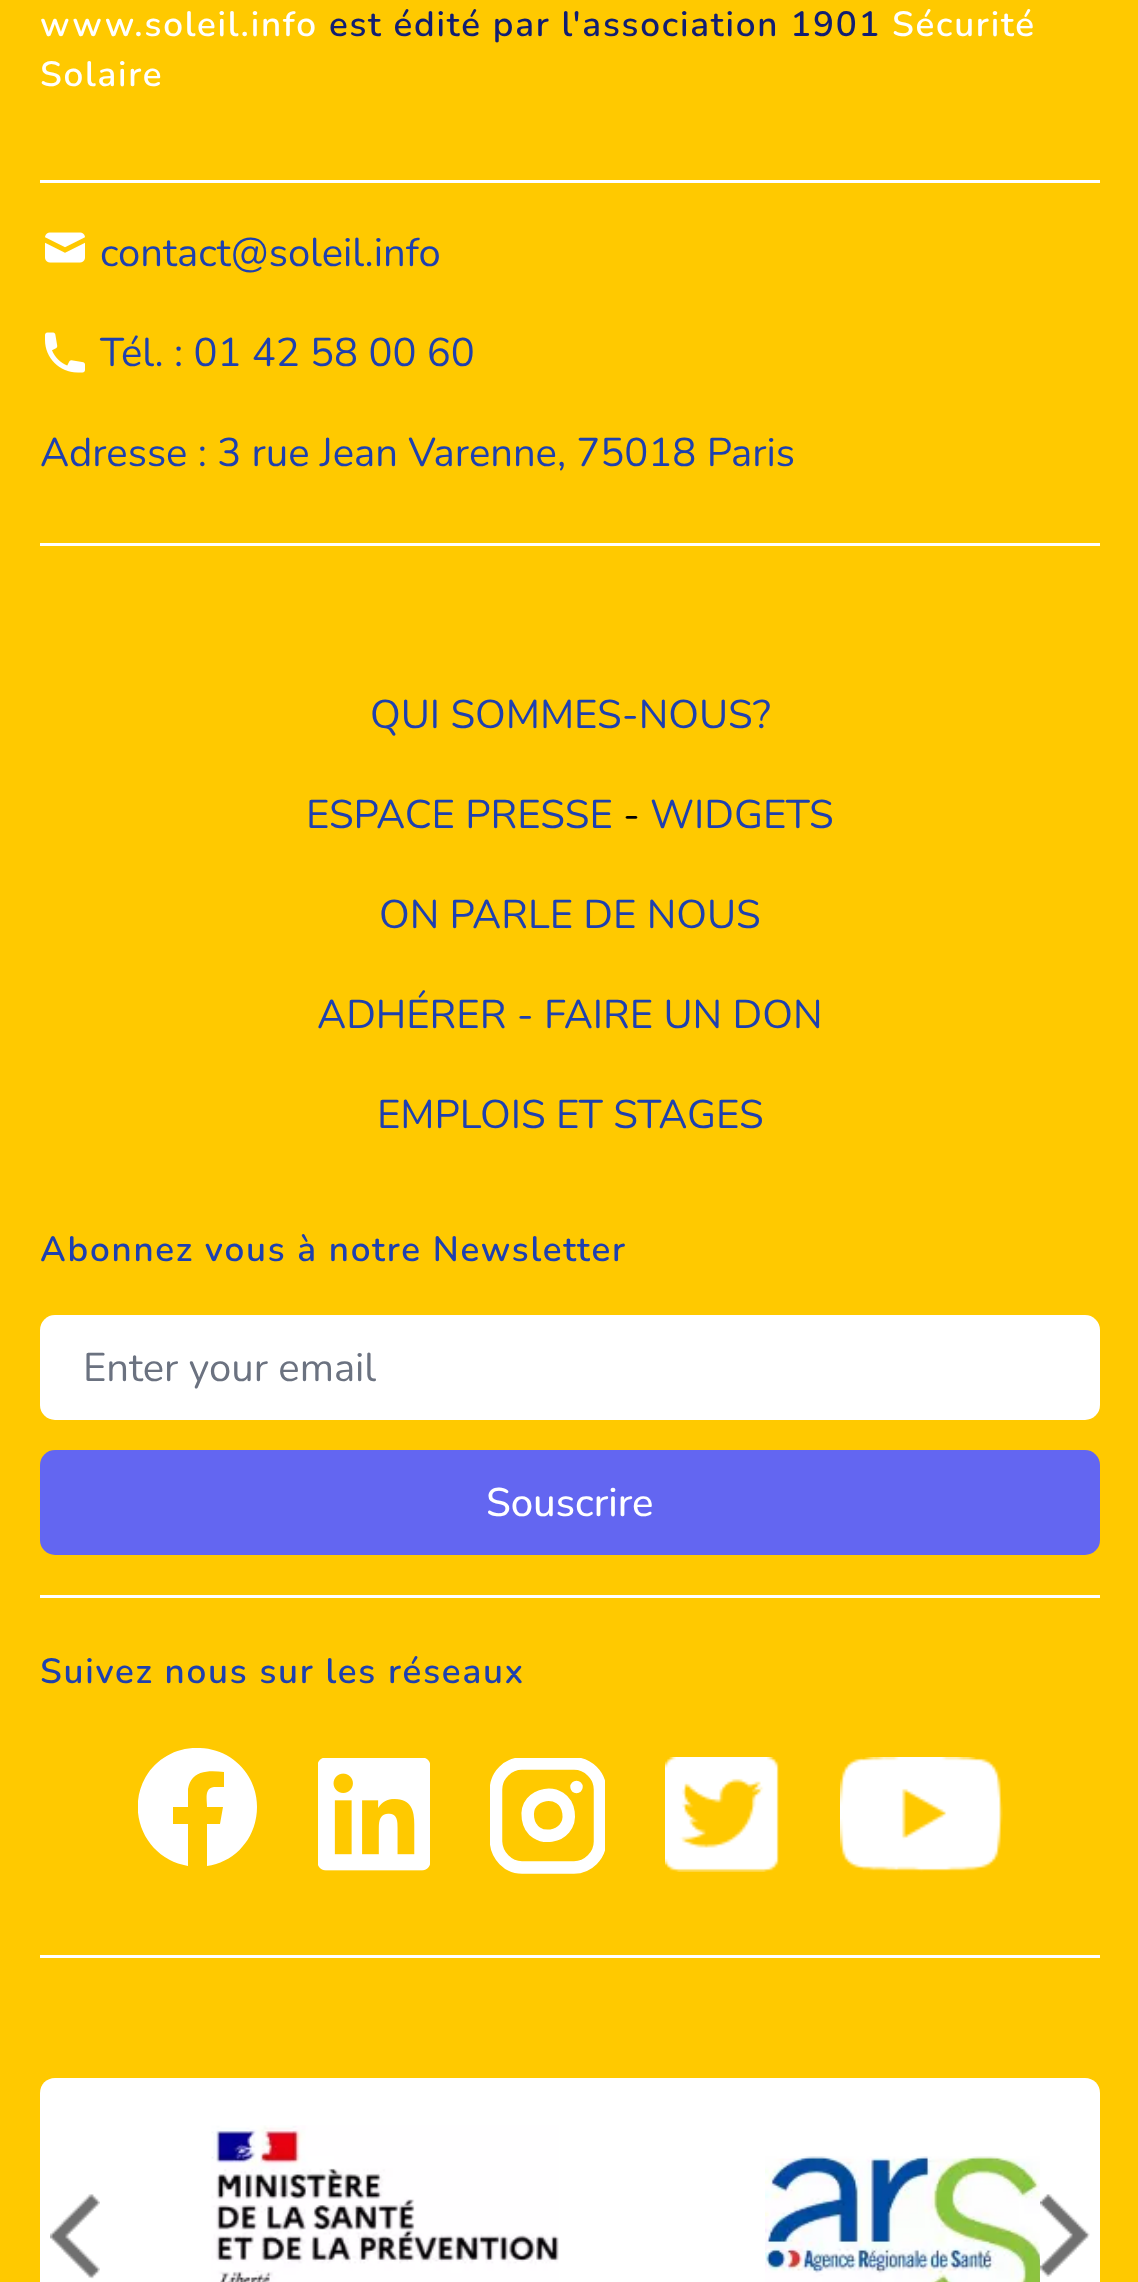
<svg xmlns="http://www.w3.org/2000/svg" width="1138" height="2282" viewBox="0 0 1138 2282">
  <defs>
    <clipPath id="clip1"><rect x="138" y="1748" width="120" height="120"/></clipPath>
    <clipPath id="clip2"><rect x="490" y="1758" width="115" height="117"/></clipPath>
  </defs>
  <rect width="100%" height="100%" fill="#ffc900"/>
  <rect x="40" y="180" width="1060" height="3" fill="#ffffff"/>
  <text x="40" y="36" font-family="Nunito" font-size="35" font-weight="600" letter-spacing="1.75" fill="#ffffff">www.soleil.info</text>
  <text x="329" y="36" font-family="Nunito" font-size="35" font-weight="600" letter-spacing="1.75" fill="#111e72">est édité par l'association 1901</text>
  <text x="892" y="36" font-family="Nunito" font-size="35" font-weight="600" letter-spacing="1.75" fill="#ffffff">Sécurité</text>
  <text x="40" y="86" font-family="Nunito" font-size="35" font-weight="600" letter-spacing="1.75" fill="#ffffff">Solaire</text>
  <image x="45" y="232" width="40" height="31" href="img1.png"/>
  <text x="100" y="266" font-family="Nunito" font-size="40" fill="#1e40af">contact@soleil.info</text>
  <image x="45" y="332" width="40" height="41" href="img2.png"/>
  <text x="100" y="366" font-family="Nunito" font-size="40" fill="#1e40af">Tél. : 01 42 58 00 60</text>
  <rect x="40" y="543" width="1060" height="3" fill="#ffffff"/>
  <text x="40" y="466" font-family="Nunito" font-size="40" fill="#1e40af">Adresse : 3 rue Jean Varenne, 75018 Paris</text>
  <text x="370" y="728" font-family="Nunito" font-size="40" fill="#1e40af">QUI SOMMES-NOUS?</text>
  <text x="306" y="828" font-family="Nunito" font-size="40" fill="#1e40af">ESPACE PRESSE</text>
  <text x="623" y="828" font-family="Nunito" font-size="40" fill="#000000">-</text>
  <text x="650" y="828" font-family="Nunito" font-size="40" fill="#1e40af">WIDGETS</text>
  <text x="379" y="928" font-family="Nunito" font-size="40" fill="#1e40af">ON PARLE DE NOUS</text>
  <text x="317" y="1028" font-family="Nunito" font-size="40" fill="#1e40af">ADHÉRER - FAIRE UN DON</text>
  <text x="377" y="1128" font-family="Nunito" font-size="40" fill="#1e40af">EMPLOIS ET STAGES</text>
  <text x="40" y="1261" font-family="Nunito" font-size="35" font-weight="600" letter-spacing="1.75" fill="#1e40af">Abonnez vous à notre Newsletter</text>
  <rect x="40" y="1595" width="1060" height="3" fill="#ffffff"/>
  <rect x="40" y="1315" width="1060" height="105" rx="15" fill="#ffffff"/>
  <text x="83" y="1381" font-family="Nunito" font-size="40" fill="#6b7280">Enter your email</text>
  <rect x="40" y="1450" width="1060" height="105" rx="15" fill="#6366f1"/>
  <text x="486" y="1516" font-family="Nunito" font-size="40" font-weight="500" fill="#ffffff">Souscrire</text>
  <rect x="40" y="1955" width="1060" height="3" fill="#ffffff"/>
  <text x="40" y="1683" font-family="Nunito" font-size="35" font-weight="600" letter-spacing="1.75" fill="#1e40af">Suivez nous sur les réseaux</text>
  <g clip-path="url(#clip1)">
    <path d="M257 1807C257 1775 232 1749 200 1748C169 1746 141 1769 138 1801C135 1833 157 1861 188 1866V1824H173V1807H188V1789C191 1770 209 1770 224 1772V1787H214C204 1788 207 1800 207 1807H223L220 1824H207V1866C236 1862 257 1837 257 1807Z" fill="#ffffff"/>
  </g>
  <image x="318" y="1758" width="112" height="113" href="img3.png"/>
  <g clip-path="url(#clip2)">
    <path d="M522 1763.5H574C588 1763.5 600 1775.5 600 1789.5V1841.5C600 1855.5 588 1867.5 574 1867.5H522C508 1867.5 496.5 1855.5 496 1841.5V1789.5C496 1775.5 508 1763.5 522 1763.5Z" fill="none" stroke="#ffffff" stroke-width="12.5" stroke-linecap="round" stroke-linejoin="round"/>
  </g>
  <path d="M568.5 1812.5C572.5 1839 532 1845.5 528 1818.5C523.5 1791.5 564.5 1785 568.5 1812.5ZM576.5 1787H576.5" fill="none" stroke="#ffffff" stroke-width="12.5" stroke-linecap="round" stroke-linejoin="round"/>
  <image x="665" y="1757" width="114" height="115" href="img4.png"/>
  <image x="840" y="1757" width="163" height="115" href="img5.png"/>
  <path d="M55 2078H100V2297H55C46.5 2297 40 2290.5 40 2282V2093C40 2084.5 46.5 2078 55 2078Z" fill="#ffffff"/>
  <image x="50" y="2194" width="50" height="85" href="img6.png"/>
  <rect x="100" y="2078" width="940" height="204" fill="#ffffff"/>
  <image x="211" y="2125" width="348" height="157" href="img7.png"/>
  <image x="765" y="2156" width="275" height="126" href="img8.png"/>
  <path d="M1040 2078H1085C1093.5 2078 1100 2084.5 1100 2093V2282C1100 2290.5 1093.5 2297 1085 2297H1040Z" fill="#ffffff"/>
  <image x="1040" y="2194" width="50" height="83" href="img9.png"/>
</svg>
